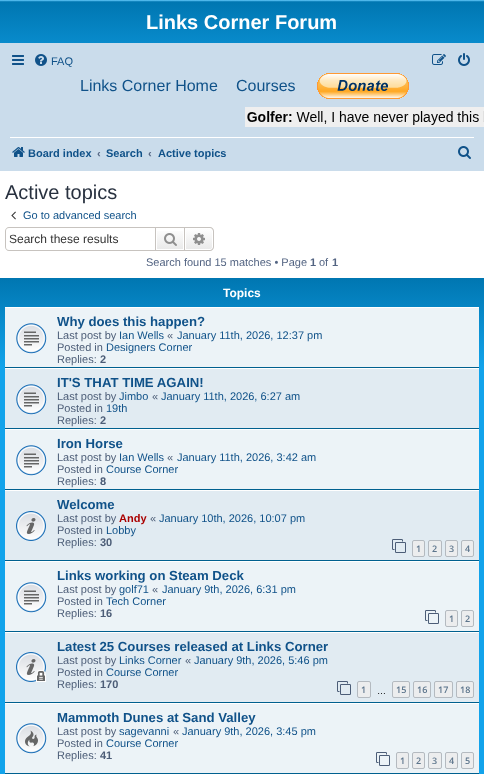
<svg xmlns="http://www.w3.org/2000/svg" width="484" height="774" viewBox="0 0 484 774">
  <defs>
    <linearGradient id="g1" gradientUnits="userSpaceOnUse" x1="242" y1="0" x2="242" y2="92"><stop offset="0" stop-color="#6aceff"/><stop offset="0.02" stop-color="#0076b1"/><stop offset="1" stop-color="#12a3eb"/></linearGradient>
    <linearGradient id="g2" gradientUnits="userSpaceOnUse" x1="170" y1="228" x2="170" y2="250"><stop offset="0" stop-color="#ffffff"/><stop offset="1" stop-color="#e9e9e9"/></linearGradient>
    <linearGradient id="g3" gradientUnits="userSpaceOnUse" x1="199" y1="228" x2="199" y2="250"><stop offset="0" stop-color="#ffffff"/><stop offset="1" stop-color="#e9e9e9"/></linearGradient>
    <linearGradient id="g4" gradientUnits="userSpaceOnUse" x1="242" y1="278" x2="242" y2="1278"><stop offset="0" stop-color="#6aceff"/><stop offset="0" stop-color="#0076b1"/><stop offset="0.09" stop-color="#12a3eb"/><stop offset="1" stop-color="#12a3eb"/></linearGradient>
  </defs>
  <rect width="100%" height="100%" fill="#ffffff"/>
  <rect x="0" y="0" width="484" height="43" fill="url(#g1)"/>
  <text x="146" y="29" font-family="Liberation Sans" font-size="20" font-weight="bold" fill="#ffffff">Links Corner Forum</text>
  <rect x="0" y="43" width="484" height="128" fill="#cadceb"/>
  <image x="12" y="55" width="12" height="10" href="img1.png"/>
  <image x="35" y="54" width="12" height="12" href="img2.png"/>
  <text x="51" y="65" font-family="Liberation Sans" font-size="11" fill="#105289">FAQ</text>
  <image x="432" y="54" width="14" height="11" href="img3.png"/>
  <image x="458" y="53" width="12" height="13" href="img4.png"/>
  <text x="80" y="91" font-family="Liberation Sans" font-size="16" fill="#105289">Links Corner Home</text>
  <text x="236" y="91" font-family="Liberation Sans" font-size="16" fill="#105289">Courses</text>
  <image x="317" y="73" width="92" height="26" href="img5.png"/>
  <image x="245" y="107" width="239" height="20" href="img6.png"/>
  <rect x="10" y="137" width="464" height="1" fill="#ffffff"/>
  <image x="12" y="147" width="13" height="10" href="img7.png"/>
  <text x="28" y="157" font-family="Liberation Sans" font-size="11" font-weight="bold" fill="#105289">Board index</text>
  <text x="97" y="157" font-family="Liberation Sans" font-size="11" font-weight="bold" fill="#536482">‹</text>
  <text x="106" y="157" font-family="Liberation Sans" font-size="11" font-weight="bold" fill="#105289">Search</text>
  <text x="148" y="157" font-family="Liberation Sans" font-size="11" font-weight="bold" fill="#536482">‹</text>
  <text x="158" y="157" font-family="Liberation Sans" font-size="11" font-weight="bold" fill="#105289">Active topics</text>
  <image x="458" y="146" width="13" height="13" href="img8.png"/>
  <text x="5" y="199" font-family="Liberation Sans" font-size="20" fill="#28313f">Active topics</text>
  <image x="11" y="211" width="5" height="9" href="img9.png"/>
  <text x="23" y="219" font-family="Liberation Sans" font-size="11" fill="#105289">Go to advanced search</text>
  <path d="M9 227H155V251H9C7 251 5 249 5 247V231C5 229 7 227 9 227ZM9 228H155V250H9C7 250 6 249 6 247V231C6 229 7 228 9 228Z" fill="#c7c3bf" fill-rule="evenodd"/>
  <text x="9" y="243" font-family="Liberation Sans" font-size="12" fill="#333333">Search these results</text>
  <rect x="157" y="231" width="26" height="18" fill="url(#g2)"/>
  <rect x="155.5" y="227.5" width="29" height="23" fill="none" stroke="#c7c3bf"/>
  <image x="164" y="233" width="13" height="13" href="img10.png"/>
  <path d="M185.5 228.5H210C211.5 228.5 212.5 229.5 212.5 231V247C212.5 248.5 211.5 249.5 210 249.5H185.5Z" fill="url(#g3)" stroke="#ffffff"/>
  <path d="M185 227H210C212 227 214 229 214 231V247C214 249 212 251 210 251H185ZM185 228H210C211.5 228 213 229.5 213 231V247C213 248.5 211.5 250 210 250H185Z" fill="#c7c3bf" fill-rule="evenodd"/>
  <image x="193" y="233" width="12" height="12" href="img11.png"/>
  <text x="146" y="266" font-family="Liberation Sans" font-size="11" fill="#536482">Search found 15 matches • Page</text>
  <text x="310" y="266" font-family="Liberation Sans" font-size="11" font-weight="bold" fill="#536482">1</text>
  <text x="319" y="266" font-family="Liberation Sans" font-size="11" fill="#536482">of</text>
  <text x="332" y="266" font-family="Liberation Sans" font-size="11" font-weight="bold" fill="#536482">1</text>
  <rect x="0" y="278" width="484" height="496" fill="url(#g4)"/>
  <text x="223" y="297" font-family="Liberation Sans" font-size="12" font-weight="bold" fill="#ffffff">Topics</text>
  <rect x="5" y="308" width="474" height="59" fill="#ecf3f7"/>
  <rect x="5" y="307" width="474" height="1" fill="#ffffff"/>
  <rect x="5" y="367" width="474" height="1" fill="#00608f"/>
  <image x="16" y="323" width="31" height="31" href="img12.png"/>
  <text x="57" y="326" font-family="Liberation Sans" font-size="13.2" font-weight="bold" fill="#105289">Why does this happen?</text>
  <text x="57" y="339" font-family="Liberation Sans" font-size="11" fill="#4c5d77">Last post by</text>
  <text x="119" y="339" font-family="Liberation Sans" font-size="11" fill="#105289">Ian Wells</text>
  <text x="167" y="339" font-family="Liberation Sans" font-size="11" fill="#4c5d77">«</text>
  <text x="177" y="339" font-family="Liberation Sans" font-size="11" fill="#105289">January 11th, 2026, 12:37 pm</text>
  <text x="57" y="351" font-family="Liberation Sans" font-size="11" fill="#4c5d77">Posted in</text>
  <text x="106" y="351" font-family="Liberation Sans" font-size="11" fill="#105289">Designers Corner</text>
  <text x="57" y="363" font-family="Liberation Sans" font-size="11" fill="#4c5d77">Replies:</text>
  <text x="100" y="363" font-family="Liberation Sans" font-size="11" font-weight="bold" fill="#4c5d77">2</text>
  <rect x="5" y="369" width="474" height="59" fill="#e1ebf2"/>
  <rect x="5" y="368" width="474" height="1" fill="#ffffff"/>
  <rect x="5" y="428" width="474" height="1" fill="#00608f"/>
  <image x="16" y="384" width="31" height="31" href="img13.png"/>
  <text x="57" y="387" font-family="Liberation Sans" font-size="13.2" font-weight="bold" fill="#105289">IT'S THAT TIME AGAIN!</text>
  <text x="57" y="400" font-family="Liberation Sans" font-size="11" fill="#4c5d77">Last post by</text>
  <text x="119" y="400" font-family="Liberation Sans" font-size="11" fill="#105289">Jimbo</text>
  <text x="152" y="400" font-family="Liberation Sans" font-size="11" fill="#4c5d77">«</text>
  <text x="161" y="400" font-family="Liberation Sans" font-size="11" fill="#105289">January 11th, 2026, 6:27 am</text>
  <text x="57" y="412" font-family="Liberation Sans" font-size="11" fill="#4c5d77">Posted in</text>
  <text x="106" y="412" font-family="Liberation Sans" font-size="11" fill="#105289">19th</text>
  <text x="57" y="424" font-family="Liberation Sans" font-size="11" fill="#4c5d77">Replies:</text>
  <text x="100" y="424" font-family="Liberation Sans" font-size="11" font-weight="bold" fill="#4c5d77">2</text>
  <rect x="5" y="430" width="474" height="59" fill="#ecf3f7"/>
  <rect x="5" y="429" width="474" height="1" fill="#ffffff"/>
  <rect x="5" y="489" width="474" height="1" fill="#00608f"/>
  <image x="16" y="445" width="31" height="31" href="img12.png"/>
  <text x="57" y="448" font-family="Liberation Sans" font-size="13.2" font-weight="bold" fill="#105289">Iron Horse</text>
  <text x="57" y="461" font-family="Liberation Sans" font-size="11" fill="#4c5d77">Last post by</text>
  <text x="119" y="461" font-family="Liberation Sans" font-size="11" fill="#105289">Ian Wells</text>
  <text x="167" y="461" font-family="Liberation Sans" font-size="11" fill="#4c5d77">«</text>
  <text x="177" y="461" font-family="Liberation Sans" font-size="11" fill="#105289">January 11th, 2026, 3:42 am</text>
  <text x="57" y="473" font-family="Liberation Sans" font-size="11" fill="#4c5d77">Posted in</text>
  <text x="106" y="473" font-family="Liberation Sans" font-size="11" fill="#105289">Course Corner</text>
  <text x="57" y="485" font-family="Liberation Sans" font-size="11" fill="#4c5d77">Replies:</text>
  <text x="100" y="485" font-family="Liberation Sans" font-size="11" font-weight="bold" fill="#4c5d77">8</text>
  <rect x="5" y="491" width="474" height="69" fill="#e1ebf2"/>
  <rect x="5" y="490" width="474" height="1" fill="#ffffff"/>
  <rect x="5" y="560" width="474" height="1" fill="#00608f"/>
  <image x="16" y="511" width="30" height="30" href="img14.png"/>
  <text x="57" y="509" font-family="Liberation Sans" font-size="13.2" font-weight="bold" fill="#105289">Welcome</text>
  <text x="57" y="522" font-family="Liberation Sans" font-size="11" fill="#4c5d77">Last post by</text>
  <text x="119" y="522" font-family="Liberation Sans" font-size="11" font-weight="bold" fill="#aa0000">Andy</text>
  <text x="150" y="522" font-family="Liberation Sans" font-size="11" fill="#4c5d77">«</text>
  <text x="159" y="522" font-family="Liberation Sans" font-size="11" fill="#105289">January 10th, 2026, 10:07 pm</text>
  <text x="57" y="534" font-family="Liberation Sans" font-size="11" fill="#4c5d77">Posted in</text>
  <text x="106" y="534" font-family="Liberation Sans" font-size="11" fill="#105289">Lobby</text>
  <text x="57" y="546" font-family="Liberation Sans" font-size="11" fill="#4c5d77">Replies:</text>
  <text x="100" y="546" font-family="Liberation Sans" font-size="11" font-weight="bold" fill="#4c5d77">30</text>
  <image x="392" y="539" width="14" height="14" href="img15.png"/>
  <rect x="412.5" y="540.5" width="12" height="16" rx="1.5" fill="#ecedee" stroke="#b4bac0"/>
  <text x="416" y="552" font-family="Open Sans" font-size="9" font-weight="600" fill="#5c758c">1</text>
  <rect x="428.5" y="540.5" width="13" height="16" rx="1.5" fill="#ecedee" stroke="#b4bac0"/>
  <text x="432" y="552" font-family="Open Sans" font-size="9" font-weight="600" fill="#5c758c">2</text>
  <rect x="445.5" y="540.5" width="12" height="16" rx="1.5" fill="#ecedee" stroke="#b4bac0"/>
  <text x="449" y="552" font-family="Open Sans" font-size="9" font-weight="600" fill="#5c758c">3</text>
  <rect x="461.5" y="540.5" width="12" height="16" rx="1.5" fill="#ecedee" stroke="#b4bac0"/>
  <text x="465" y="552" font-family="Open Sans" font-size="9" font-weight="600" fill="#5c758c">4</text>
  <rect x="5" y="562" width="474" height="69" fill="#ecf3f7"/>
  <rect x="5" y="561" width="474" height="1" fill="#ffffff"/>
  <rect x="5" y="631" width="474" height="1" fill="#00608f"/>
  <image x="16" y="582" width="31" height="31" href="img12.png"/>
  <text x="57" y="580" font-family="Liberation Sans" font-size="13.2" font-weight="bold" fill="#105289">Links working on Steam Deck</text>
  <text x="57" y="593" font-family="Liberation Sans" font-size="11" fill="#4c5d77">Last post by</text>
  <text x="119" y="593" font-family="Liberation Sans" font-size="11" fill="#105289">golf71</text>
  <text x="152" y="593" font-family="Liberation Sans" font-size="11" fill="#4c5d77">«</text>
  <text x="162" y="593" font-family="Liberation Sans" font-size="11" fill="#105289">January 9th, 2026, 6:31 pm</text>
  <text x="57" y="605" font-family="Liberation Sans" font-size="11" fill="#4c5d77">Posted in</text>
  <text x="106" y="605" font-family="Liberation Sans" font-size="11" fill="#105289">Tech Corner</text>
  <text x="57" y="617" font-family="Liberation Sans" font-size="11" fill="#4c5d77">Replies:</text>
  <text x="100" y="617" font-family="Liberation Sans" font-size="11" font-weight="bold" fill="#4c5d77">16</text>
  <image x="425" y="610" width="14" height="14" href="img16.png"/>
  <rect x="445.5" y="610.5" width="12" height="16" rx="1.5" fill="#ecedee" stroke="#b4bac0"/>
  <text x="449" y="622" font-family="Open Sans" font-size="9" font-weight="600" fill="#5c758c">1</text>
  <rect x="461.5" y="610.5" width="12" height="16" rx="1.5" fill="#ecedee" stroke="#b4bac0"/>
  <text x="465" y="622" font-family="Open Sans" font-size="9" font-weight="600" fill="#5c758c">2</text>
  <rect x="5" y="633" width="474" height="69" fill="#e1ebf2"/>
  <rect x="5" y="632" width="474" height="1" fill="#ffffff"/>
  <rect x="5" y="702" width="474" height="1" fill="#00608f"/>
  <image x="16" y="652" width="30" height="30" href="img17.png"/>
  <text x="57" y="651" font-family="Liberation Sans" font-size="13.2" font-weight="bold" fill="#105289">Latest 25 Courses released at Links Corner</text>
  <text x="57" y="664" font-family="Liberation Sans" font-size="11" fill="#4c5d77">Last post by</text>
  <text x="119" y="664" font-family="Liberation Sans" font-size="11" fill="#105289">Links Corner</text>
  <text x="185" y="664" font-family="Liberation Sans" font-size="11" fill="#4c5d77">«</text>
  <text x="194" y="664" font-family="Liberation Sans" font-size="11" fill="#105289">January 9th, 2026, 5:46 pm</text>
  <text x="57" y="676" font-family="Liberation Sans" font-size="11" fill="#4c5d77">Posted in</text>
  <text x="106" y="676" font-family="Liberation Sans" font-size="11" fill="#105289">Course Corner</text>
  <text x="57" y="688" font-family="Liberation Sans" font-size="11" fill="#4c5d77">Replies:</text>
  <text x="100" y="688" font-family="Liberation Sans" font-size="11" font-weight="bold" fill="#4c5d77">170</text>
  <image x="337" y="681" width="14" height="14" href="img15.png"/>
  <rect x="357.5" y="681.5" width="13" height="16" rx="1.5" fill="#ecedee" stroke="#b4bac0"/>
  <text x="361" y="693" font-family="Open Sans" font-size="9" font-weight="600" fill="#5c758c">1</text>
  <text x="377" y="694" font-family="Liberation Sans" font-size="9" fill="#000000">…</text>
  <rect x="392.5" y="681.5" width="17" height="16" rx="1.5" fill="#ecedee" stroke="#b4bac0"/>
  <text x="396" y="693" font-family="Open Sans" font-size="9" font-weight="600" fill="#5c758c">15</text>
  <rect x="413.5" y="681.5" width="17" height="16" rx="1.5" fill="#ecedee" stroke="#b4bac0"/>
  <text x="417" y="693" font-family="Open Sans" font-size="9" font-weight="600" fill="#5c758c">16</text>
  <rect x="434.5" y="681.5" width="18" height="16" rx="1.5" fill="#ecedee" stroke="#b4bac0"/>
  <text x="438" y="693" font-family="Open Sans" font-size="9" font-weight="600" fill="#5c758c">17</text>
  <rect x="456.5" y="681.5" width="17" height="16" rx="1.5" fill="#ecedee" stroke="#b4bac0"/>
  <text x="460" y="693" font-family="Open Sans" font-size="9" font-weight="600" fill="#5c758c">18</text>
  <rect x="5" y="704" width="474" height="69" fill="#ecf3f7"/>
  <rect x="5" y="703" width="474" height="1" fill="#ffffff"/>
  <rect x="5" y="773" width="474" height="1" fill="#00608f"/>
  <image x="16" y="723" width="31" height="31" href="img18.png"/>
  <text x="57" y="722" font-family="Liberation Sans" font-size="13.2" font-weight="bold" fill="#105289">Mammoth Dunes at Sand Valley</text>
  <text x="57" y="735" font-family="Liberation Sans" font-size="11" fill="#4c5d77">Last post by</text>
  <text x="119" y="735" font-family="Liberation Sans" font-size="11" fill="#105289">sagevanni</text>
  <text x="173" y="735" font-family="Liberation Sans" font-size="11" fill="#4c5d77">«</text>
  <text x="182" y="735" font-family="Liberation Sans" font-size="11" fill="#105289">January 9th, 2026, 3:45 pm</text>
  <text x="57" y="747" font-family="Liberation Sans" font-size="11" fill="#4c5d77">Posted in</text>
  <text x="106" y="747" font-family="Liberation Sans" font-size="11" fill="#105289">Course Corner</text>
  <text x="57" y="759" font-family="Liberation Sans" font-size="11" fill="#4c5d77">Replies:</text>
  <text x="100" y="759" font-family="Liberation Sans" font-size="11" font-weight="bold" fill="#4c5d77">41</text>
  <image x="376" y="752" width="14" height="14" href="img16.png"/>
  <rect x="396.5" y="752.5" width="12" height="16" rx="1.5" fill="#ecedee" stroke="#b4bac0"/>
  <text x="400" y="764" font-family="Open Sans" font-size="9" font-weight="600" fill="#5c758c">1</text>
  <rect x="412.5" y="752.5" width="12" height="16" rx="1.5" fill="#ecedee" stroke="#b4bac0"/>
  <text x="416" y="764" font-family="Open Sans" font-size="9" font-weight="600" fill="#5c758c">2</text>
  <rect x="428.5" y="752.5" width="13" height="16" rx="1.5" fill="#ecedee" stroke="#b4bac0"/>
  <text x="432" y="764" font-family="Open Sans" font-size="9" font-weight="600" fill="#5c758c">3</text>
  <rect x="445.5" y="752.5" width="12" height="16" rx="1.5" fill="#ecedee" stroke="#b4bac0"/>
  <text x="449" y="764" font-family="Open Sans" font-size="9" font-weight="600" fill="#5c758c">4</text>
  <rect x="461.5" y="752.5" width="12" height="16" rx="1.5" fill="#ecedee" stroke="#b4bac0"/>
  <text x="465" y="764" font-family="Open Sans" font-size="9" font-weight="600" fill="#5c758c">5</text>
</svg>
